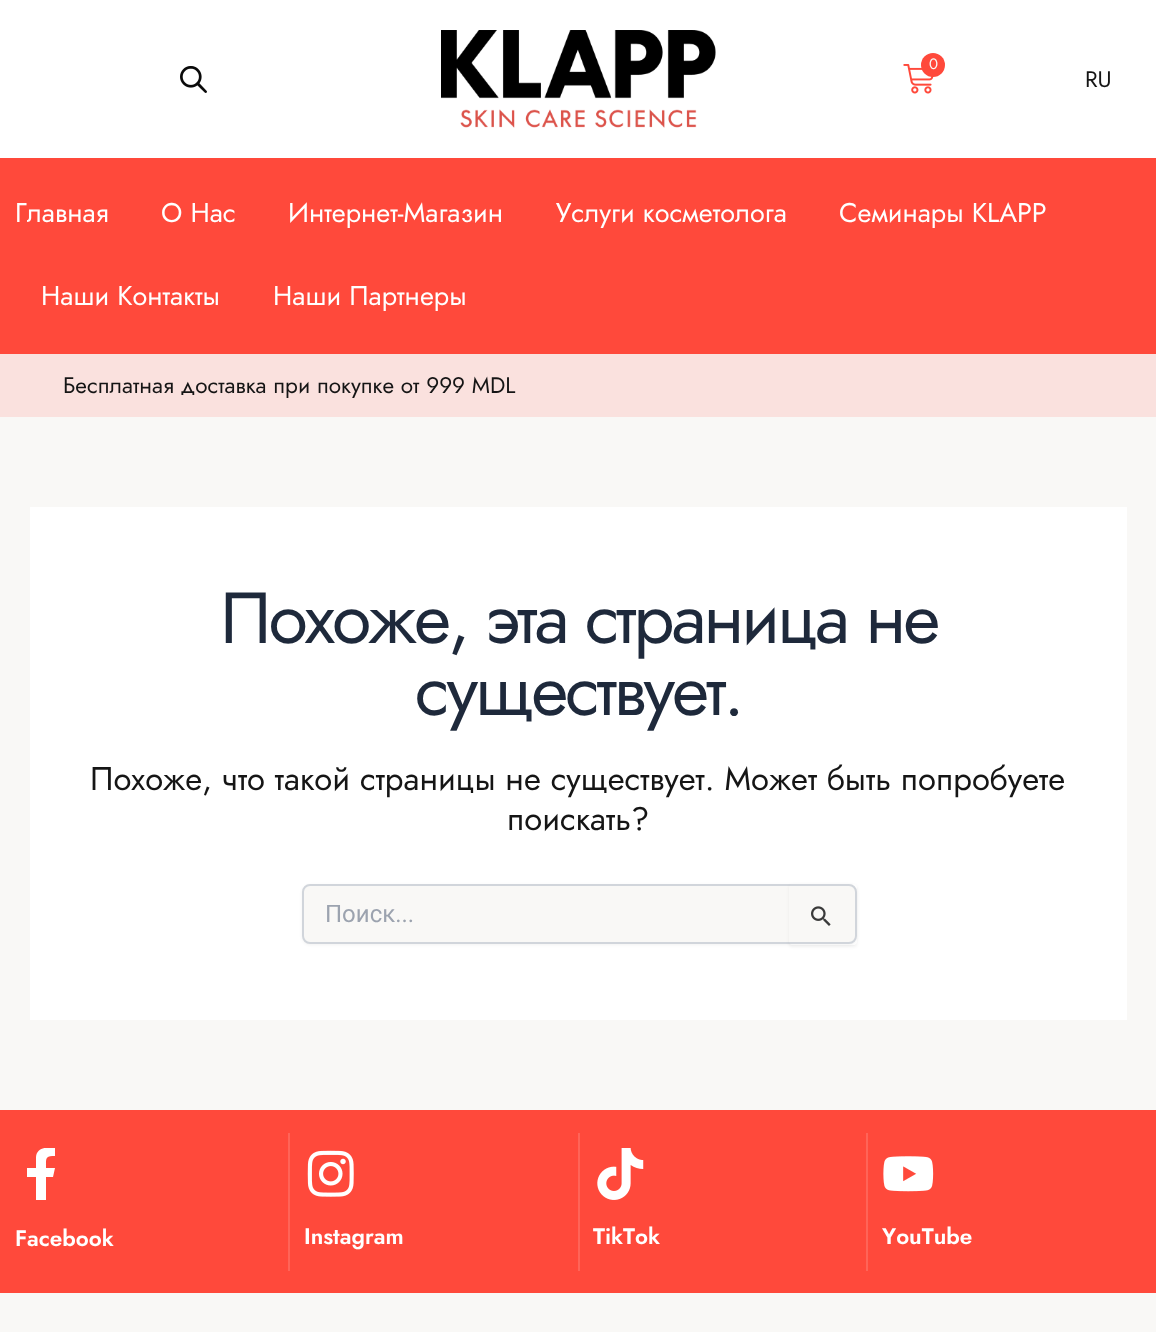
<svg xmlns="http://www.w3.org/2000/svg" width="1156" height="1332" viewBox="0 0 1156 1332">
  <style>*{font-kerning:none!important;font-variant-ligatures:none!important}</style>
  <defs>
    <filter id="blur1" x="-50%" y="-200%" width="200%" height="500%"><feGaussianBlur stdDeviation="1.5"/></filter>
    <clipPath id="clip1"><path d="M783 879H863V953H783ZM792 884H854C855.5 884 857 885.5 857 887V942C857 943.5 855.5 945 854 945H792C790.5 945 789 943.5 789 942V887C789 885.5 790.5 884 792 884Z" clip-rule="evenodd"/></clipPath>
    <clipPath id="clip2"><rect x="15" y="1148" width="53" height="52"/></clipPath>
  </defs>
  <rect width="100%" height="100%" fill="#f9f8f6"/>
  <rect x="0" y="0" width="1156" height="158" fill="#ffffff"/>
  <image x="180" y="66" width="27" height="27" href="img1.png"/>
  <image x="441" y="30" width="275" height="98" href="img2.png"/>
  <image x="903" y="64" width="31" height="30" href="img3.png"/>
  <circle cx="933" cy="65" r="12" fill="#ff493b"/>
  <text x="929" y="69" font-family="Jost" font-size="15" fill="#f9f8f6">0</text>
  <text x="1085" y="87" font-family="Jost" font-size="22.5" fill="#151515">RU</text>
  <rect x="0" y="158" width="1156" height="196" fill="#ff493b"/>
  <text x="15" y="222" font-family="Jost" font-size="27" fill="#ffffff">Главная</text>
  <text x="161" y="222" font-family="Jost" font-size="27" fill="#ffffff">О Нас</text>
  <text x="288" y="222" font-family="Jost" font-size="27" fill="#ffffff">Интернет-Магазин</text>
  <text x="556" y="222" font-family="Jost" font-size="27" fill="#ffffff">Услуги косметолога</text>
  <text x="839" y="222" font-family="Jost" font-size="27" fill="#ffffff">Семинары KLAPP</text>
  <text x="41" y="305" font-family="Jost" font-size="27" fill="#ffffff">Наши Контакты</text>
  <text x="273" y="305" font-family="Jost" font-size="27" fill="#ffffff">Наши Партнеры</text>
  <rect x="0" y="354" width="1156" height="63" fill="#fae1de"/>
  <text x="63" y="393" font-family="Jost" font-size="22.5" fill="#151515">Бесплатная доставка при покупке от 999 MDL</text>
  <rect x="30" y="507" width="1097" height="513" fill="#ffffff"/>
  <text x="220" y="643" font-family="Jost" font-size="72" letter-spacing="-3" fill="#1e293b">Похоже, эта страница не</text>
  <text x="415" y="715" font-family="Jost" font-size="72" letter-spacing="-3" fill="#1e293b">существует.</text>
  <text x="90" y="790" font-family="Jost" font-size="32.8" fill="#151515">Похоже, что такой страницы не существует. Может быть попробуете</text>
  <text x="507" y="830" font-family="Jost" font-size="32.8" fill="#151515">поискать?</text>
  <rect x="302" y="885" width="555" height="60" rx="8" fill="#000000" fill-opacity="0.05" filter="url(#blur1)"/>
  <rect x="303" y="885" width="553" height="58" rx="7" fill="#f9f8f6" stroke="#d1d5db" stroke-width="2"/>
  <text x="325" y="922" font-family="Roboto" font-size="24" fill="#9ca3af">Поиск...</text>
  <image x="811" y="906" width="20" height="20" href="img4.png"/>
  <g clip-path="url(#clip1)">
    <rect x="789" y="885" width="68" height="62" rx="3" fill="#000000" fill-opacity="0.05" filter="url(#blur1)"/>
  </g>
  <rect x="0" y="1110" width="1156" height="183" fill="#ff493b"/>
  <rect x="288" y="1133" width="2" height="138" fill="#ff6458"/>
  <g clip-path="url(#clip2)">
    <path d="M53 1177L55 1168H46C46 1158 45 1156 55 1156V1148C47 1147 37 1147 36 1157V1168H27V1177H36V1200H46V1177Z" fill="#ffffff"/>
  </g>
  <text x="15" y="1246" font-family="Jost" font-size="22.5" font-weight="600" fill="#ffffff">Facebook</text>
  <rect x="578" y="1133" width="2" height="138" fill="#ff6458"/>
  <image x="307" y="1150" width="47" height="47" href="img5.png"/>
  <text x="304" y="1244" font-family="Jost" font-size="22.5" font-weight="600" fill="#ffffff">Instagram</text>
  <rect x="866" y="1133" width="2" height="138" fill="#ff6458"/>
  <image x="597" y="1148" width="47" height="52" href="img6.png"/>
  <text x="593" y="1244" font-family="Jost" font-size="22.5" font-weight="600" fill="#ffffff">TikTok</text>
  <image x="883" y="1156" width="51" height="36" href="img7.png"/>
  <text x="882" y="1244" font-family="Jost" font-size="22.5" font-weight="600" fill="#ffffff">YouTube</text>
</svg>
